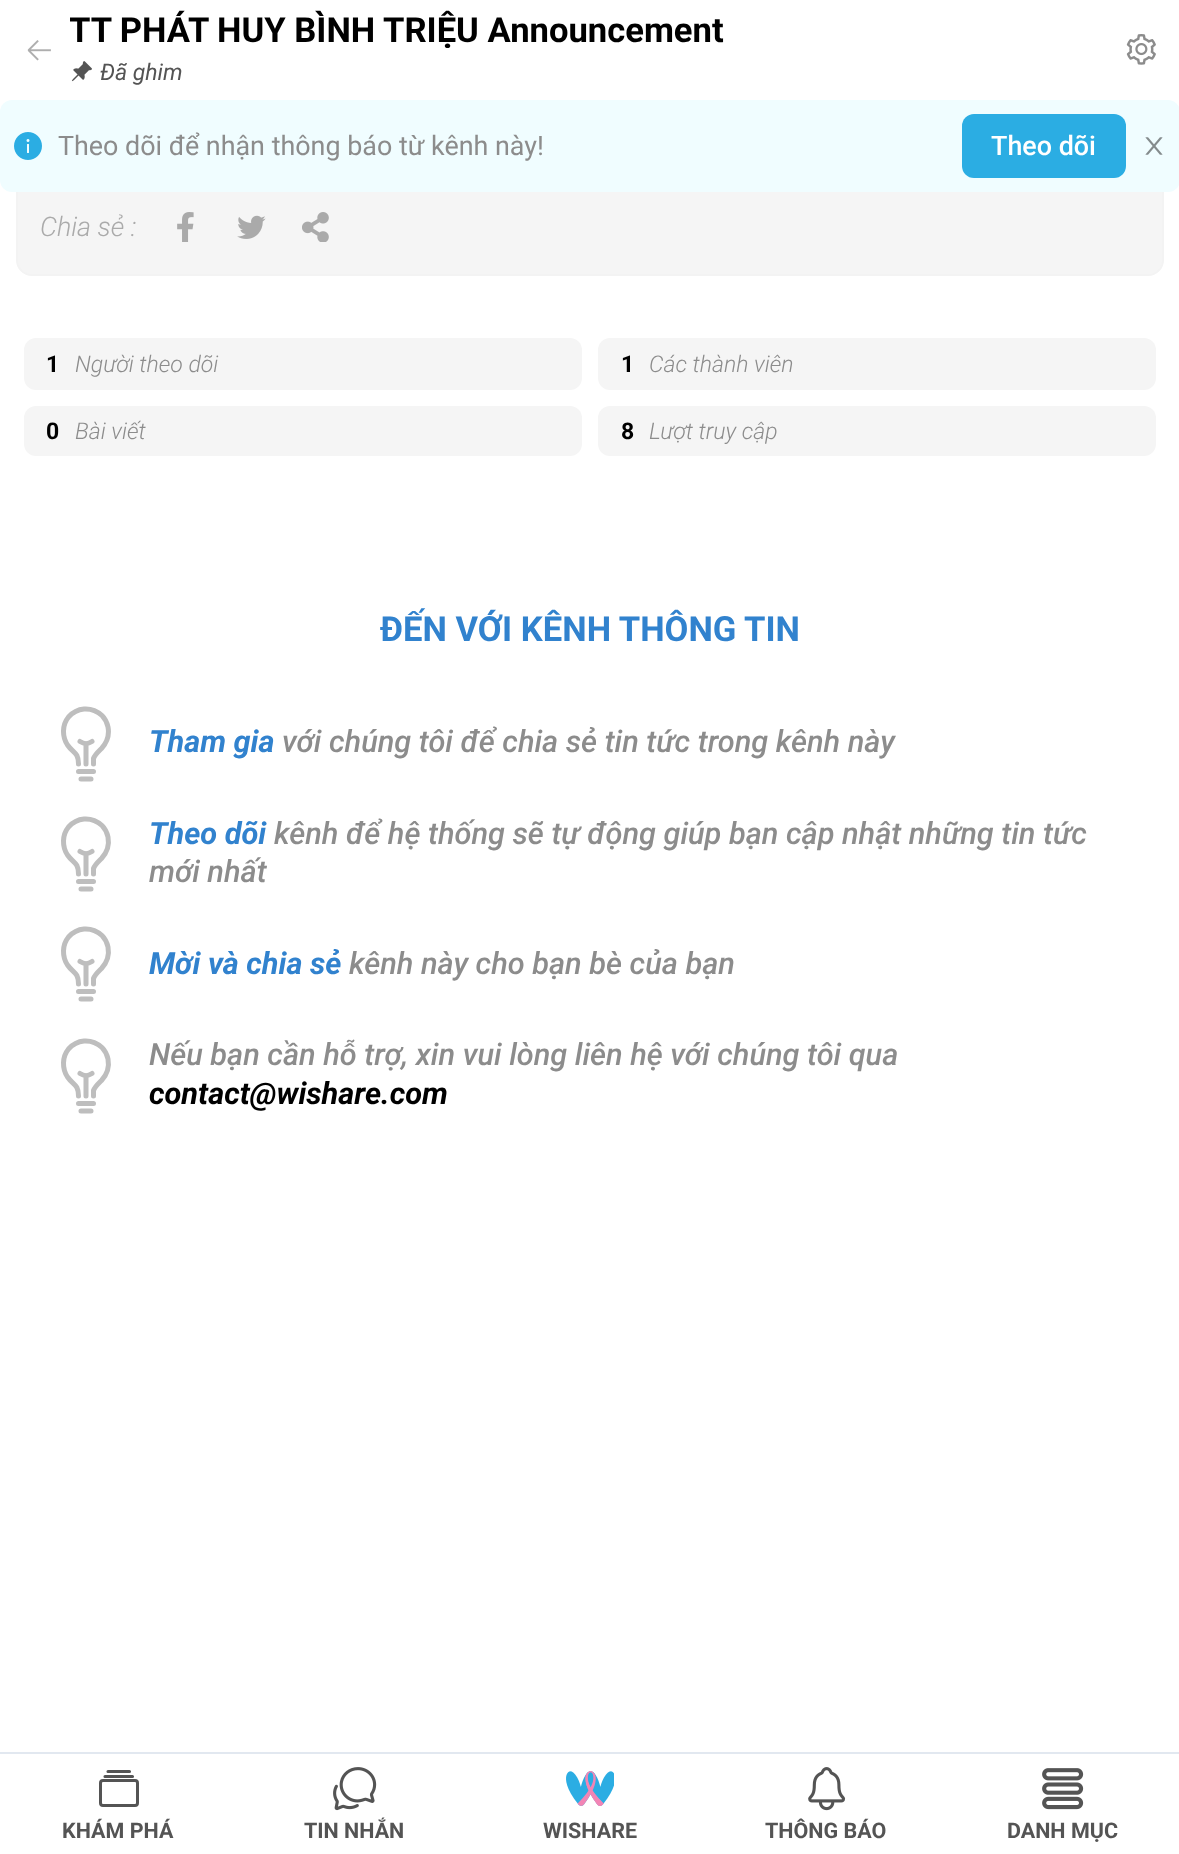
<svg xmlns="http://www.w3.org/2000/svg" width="1179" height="1854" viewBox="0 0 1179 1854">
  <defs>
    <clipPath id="clip1"><rect x="70" y="10" width="1040" height="44"/></clipPath>
  </defs>
  <rect width="100%" height="100%" fill="#ffffff"/>
  <rect x="17" y="95" width="1146" height="180" rx="15" fill="#f5f5f5" stroke="#f3f3f3" stroke-width="2"/>
  <rect x="19" y="94" width="1141" height="6" fill="#ffffff"/>
  <image x="27" y="40" width="24" height="21" href="img1.png"/>
  <g clip-path="url(#clip1)">
    <text x="69" y="42" font-family="Roboto" font-size="34.6" font-weight="bold" fill="#000000">TT PHÁT HUY BÌNH TRIỆU Announcement</text>
  </g>
  <image x="71" y="61" width="21" height="21" href="img2.png"/>
  <text x="100" y="80" font-family="Roboto" font-size="23" font-style="italic" fill="#545454">Đã ghim</text>
  <image x="1126" y="34" width="30" height="31" href="img3.png"/>
  <rect x="0" y="100" width="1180" height="92" rx="12" fill="#f0fdff"/>
  <image x="14" y="132" width="28" height="28" href="img4.png"/>
  <text x="58" y="155" font-family="Roboto" font-size="26.9" fill="#8c8c8c">Theo dõi để nhận thông báo từ kênh này!</text>
  <rect x="962" y="114" width="164" height="64" rx="12" fill="#2bade3"/>
  <text x="991" y="155" font-family="Roboto" font-size="26.9" font-weight="500" fill="#ffffff">Theo dõi</text>
  <image x="1145" y="137" width="18" height="18" href="img5.png"/>
  <text x="40" y="236" font-family="Roboto" font-size="26.9" font-weight="300" font-style="italic" fill="#aaaaaa">Chia sẻ :</text>
  <image x="177" y="212" width="17" height="30" href="img6.png"/>
  <image x="237" y="215" width="29" height="24" href="img7.png"/>
  <image x="302" y="212" width="27" height="30" href="img8.png"/>
  <rect x="24" y="338" width="558" height="52" rx="12" fill="#f5f5f5"/>
  <text x="46" y="372" font-family="Roboto" font-size="23" font-weight="bold" fill="#000000">1</text>
  <text x="75" y="372" font-family="Roboto" font-size="23" font-weight="300" font-style="italic" fill="#8c8c8c">Người theo dõi</text>
  <rect x="598" y="338" width="558" height="52" rx="12" fill="#f5f5f5"/>
  <text x="621" y="372" font-family="Roboto" font-size="23" font-weight="bold" fill="#000000">1</text>
  <text x="649" y="372" font-family="Roboto" font-size="23" font-weight="300" font-style="italic" fill="#8c8c8c">Các thành viên</text>
  <rect x="24" y="406" width="558" height="50" rx="12" fill="#f5f5f5"/>
  <text x="46" y="439" font-family="Roboto" font-size="23" font-weight="bold" fill="#000000">0</text>
  <text x="75" y="439" font-family="Roboto" font-size="23" font-weight="300" font-style="italic" fill="#8c8c8c">Bài viết</text>
  <rect x="598" y="406" width="558" height="50" rx="12" fill="#f5f5f5"/>
  <text x="621" y="439" font-family="Roboto" font-size="23" font-weight="bold" fill="#000000">8</text>
  <text x="649" y="439" font-family="Roboto" font-size="23" font-weight="300" font-style="italic" fill="#8c8c8c">Lượt truy cập</text>
  <text x="380" y="641" font-family="Roboto" font-size="34.6" font-weight="bold" fill="#3182ce">ĐẾN VỚI KÊNH THÔNG TIN</text>
  <path d="M93.5 764V758.5C95 754.5 98.5 751.5 101.5 748.5C107 742.5 109.5 735 108 727C107 722.5 105 718.5 102 715.5C97 711 90.5 708.5 84 709C78 709.5 72.5 712.5 68.5 717C62 725 62 736.5 67.5 745C73 753 78.5 752 78.5 764M81 779H91M78.5 771.5H93.5M86 764V744" fill="none" stroke="#bebebe" stroke-width="5" stroke-linecap="round" stroke-linejoin="round"/>
  <path d="M92 741.5C87.5 744.5 84.5 744.5 80 741.5" fill="none" stroke="#bebebe" stroke-width="5" stroke-linecap="round" stroke-linejoin="round"/>
  <text x="149" y="752" font-family="Roboto" font-size="30.75" font-weight="bold" font-style="italic" fill="#3182ce">Tham gia</text>
  <text x="282" y="752" font-family="Roboto" font-size="30.75" font-weight="500" font-style="italic" fill="#8c8c8c">với chúng tôi để chia sẻ tin tức trong kênh này</text>
  <path d="M93.5 874V868.5C95 864.5 98.5 861.5 101.5 858.5C107 852.5 109.5 845 108 837C107 832.5 105 828.5 102 825.5C97 821 90.5 818.5 84 819C78 819.5 72.5 822.5 68.5 827C62 835 62 846.5 67.5 855C73 863 78.5 862 78.5 874M81 889H91M78.5 881.5H93.5M86 874V854" fill="none" stroke="#bebebe" stroke-width="5" stroke-linecap="round" stroke-linejoin="round"/>
  <path d="M92 851.5C87.5 854.5 84.5 854.5 80 851.5" fill="none" stroke="#bebebe" stroke-width="5" stroke-linecap="round" stroke-linejoin="round"/>
  <text x="149" y="844" font-family="Roboto" font-size="30.75" font-weight="bold" font-style="italic" fill="#3182ce">Theo dõi</text>
  <text x="274" y="844" font-family="Roboto" font-size="30.75" font-weight="500" font-style="italic" fill="#8c8c8c">kênh để hệ thống sẽ tự động giúp bạn cập nhật những tin tức</text>
  <text x="149" y="882" font-family="Roboto" font-size="30.75" font-weight="500" font-style="italic" fill="#8c8c8c">mới nhất</text>
  <path d="M93.5 984V978.5C95 974.5 98.5 971.5 101.5 968.5C107 962.5 109.5 955 108 947C107 942.5 105 938.5 102 935.5C97 931 90.5 928.5 84 929C78 929.5 72.5 932.5 68.5 937C62 945 62 956.5 67.5 965C73 973 78.5 972 78.5 984M81 999H91M78.5 991.5H93.5M86 984V964" fill="none" stroke="#bebebe" stroke-width="5" stroke-linecap="round" stroke-linejoin="round"/>
  <path d="M92 961.5C87.5 964.5 84.5 964.5 80 961.5" fill="none" stroke="#bebebe" stroke-width="5" stroke-linecap="round" stroke-linejoin="round"/>
  <text x="149" y="974" font-family="Roboto" font-size="30.75" font-weight="bold" font-style="italic" fill="#3182ce">Mời và chia sẻ</text>
  <text x="349" y="974" font-family="Roboto" font-size="30.75" font-weight="500" font-style="italic" fill="#8c8c8c">kênh này cho bạn bè của bạn</text>
  <path d="M93.5 1096V1090.5C95 1086.5 98.5 1083.5 101.5 1080.5C107 1074.5 109.5 1067 108 1059C107 1054.5 105 1050.5 102 1047.5C97 1043 90.5 1040.5 84 1041C78 1041.5 72.5 1044.5 68.5 1049C62 1057 62 1068.5 67.5 1077C73 1085 78.5 1084 78.5 1096M81 1111H91M78.5 1103.5H93.5M86 1096V1076" fill="none" stroke="#bebebe" stroke-width="5" stroke-linecap="round" stroke-linejoin="round"/>
  <path d="M92 1073.5C87.5 1076.5 84.5 1076.5 80 1073.5" fill="none" stroke="#bebebe" stroke-width="5" stroke-linecap="round" stroke-linejoin="round"/>
  <text x="149" y="1065" font-family="Roboto" font-size="30.75" font-weight="500" font-style="italic" fill="#8c8c8c">Nếu bạn cần hỗ trợ, xin vui lòng liên hệ với chúng tôi qua</text>
  <text x="149" y="1104" font-family="Roboto" font-size="30.75" font-weight="bold" font-style="italic" fill="#000000">contact@wishare.com</text>
  <rect x="0" y="1752" width="1179" height="2" fill="#e2e8f0"/>
  <rect x="100.5" y="1780.5" width="37" height="25" rx="2.5" fill="none" stroke="#545454" stroke-width="3"/>
  <path d="M108 1771.5H129.5M105 1776.5H132.5" fill="none" stroke="#545454" stroke-width="3.1" stroke-linecap="round"/>
  <text x="62" y="1838" font-family="Roboto" font-size="21.5" font-weight="bold" fill="#545454">KHÁM PHÁ</text>
  <image x="333" y="1767" width="44" height="44" href="img9.png"/>
  <text x="304" y="1838" font-family="Roboto" font-size="21.5" font-weight="bold" fill="#545454">TIN NHẮN</text>
  <image x="566" y="1771" width="48" height="35" href="img10.png"/>
  <text x="543" y="1838" font-family="Roboto" font-size="21.5" font-weight="bold" fill="#545454">WISHARE</text>
  <image x="808" y="1767" width="38" height="44" href="img11.png"/>
  <text x="765" y="1838" font-family="Roboto" font-size="21.5" font-weight="bold" fill="#545454">THÔNG BÁO</text>
  <image x="1042" y="1768" width="42" height="42" href="img12.png"/>
  <text x="1007" y="1838" font-family="Roboto" font-size="21.5" font-weight="bold" fill="#545454">DANH MỤC</text>
</svg>
